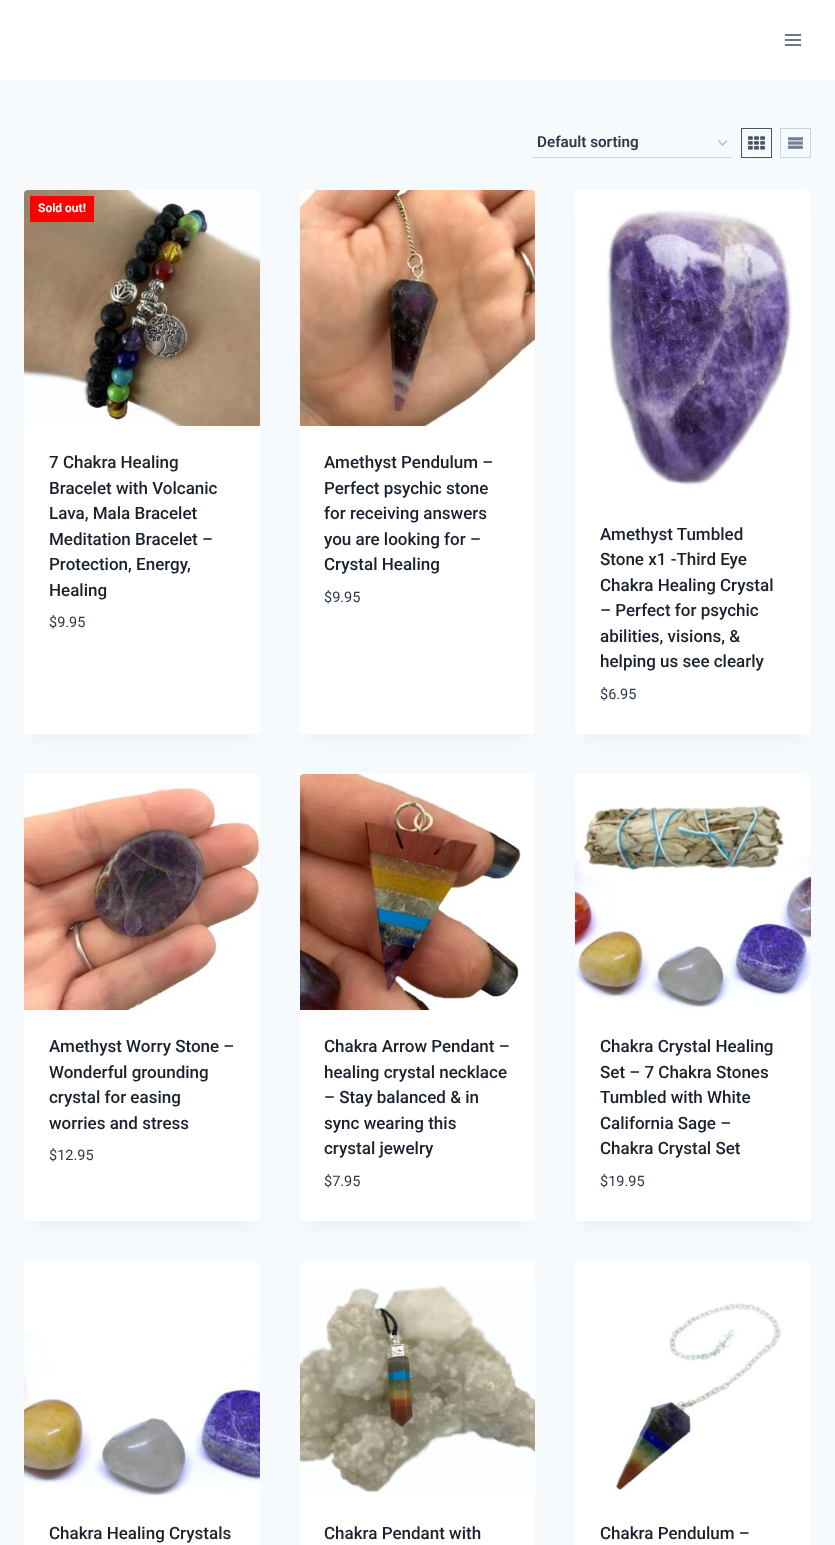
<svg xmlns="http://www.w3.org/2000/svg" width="835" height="1545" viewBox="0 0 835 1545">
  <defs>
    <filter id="blur1" x="-50%" y="-200%" width="200%" height="500%"><feGaussianBlur stdDeviation="7.5"/></filter>
  </defs>
  <rect width="100%" height="100%" fill="#f7fafc"/>
  <rect x="0" y="0" width="835" height="80" fill="#ffffff"/>
  <image x="784" y="34" width="18" height="12" href="img1.png"/>
  <path d="M718.5 140.5L722.5 145L727 140.5" fill="none" stroke="#bbbbbb" stroke-width="1.4"/>
  <rect x="532" y="157" width="200" height="1" fill="#cbd5e0"/>
  <text x="537" y="147" font-family="Roboto" font-size="15.25" font-weight="600" fill="#2d3748">Default sorting</text>
  <rect x="741.5" y="128.5" width="30" height="29" fill="none" stroke="#4a5568"/>
  <image x="748" y="136" width="17" height="14" href="img2.png"/>
  <rect x="780.5" y="128.5" width="30" height="29" fill="none" stroke="#cbd5e0"/>
  <image x="788" y="137" width="15" height="12" href="img3.png"/>
  <rect x="34" y="215" width="216" height="524" fill="#000000" fill-opacity="0.05" filter="url(#blur1)"/>
  <rect x="24" y="190" width="236" height="544" rx="4" fill="#ffffff"/>
  <image x="24" y="190" width="236" height="236" href="img4.png"/>
  <rect x="30" y="196" width="64" height="26" fill="#ff0000"/>
  <text x="38" y="212" font-family="Roboto" font-size="12" font-weight="bold" fill="#ffffff">Sold out!</text>
  <text x="49" y="468" font-family="Roboto" font-size="17" font-weight="500" fill="#1a202c">7 Chakra Healing</text>
  <text x="49" y="494" font-family="Roboto" font-size="17" font-weight="500" fill="#1a202c">Bracelet with Volcanic</text>
  <text x="49" y="519" font-family="Roboto" font-size="17" font-weight="500" fill="#1a202c">Lava, Mala Bracelet</text>
  <text x="49" y="545" font-family="Roboto" font-size="17" font-weight="500" fill="#1a202c">Meditation Bracelet –</text>
  <text x="49" y="570" font-family="Roboto" font-size="17" font-weight="500" fill="#1a202c">Protection, Energy,</text>
  <text x="49" y="596" font-family="Roboto" font-size="17" font-weight="500" fill="#1a202c">Healing</text>
  <text x="49" y="627" font-family="Roboto" font-size="14.5" fill="#2d3748">$9.95</text>
  <rect x="310" y="215" width="215" height="524" fill="#000000" fill-opacity="0.05" filter="url(#blur1)"/>
  <rect x="300" y="190" width="235" height="544" rx="4" fill="#ffffff"/>
  <image x="300" y="190" width="235" height="236" href="img5.png"/>
  <text x="324" y="468" font-family="Roboto" font-size="17" font-weight="500" fill="#1a202c">Amethyst Pendulum –</text>
  <text x="324" y="494" font-family="Roboto" font-size="17" font-weight="500" fill="#1a202c">Perfect psychic stone</text>
  <text x="324" y="519" font-family="Roboto" font-size="17" font-weight="500" fill="#1a202c">for receiving answers</text>
  <text x="324" y="545" font-family="Roboto" font-size="17" font-weight="500" fill="#1a202c">you are looking for –</text>
  <text x="324" y="570" font-family="Roboto" font-size="17" font-weight="500" fill="#1a202c">Crystal Healing</text>
  <text x="324" y="602" font-family="Roboto" font-size="14.5" fill="#2d3748">$9.95</text>
  <rect x="585" y="215" width="216" height="524" fill="#000000" fill-opacity="0.05" filter="url(#blur1)"/>
  <rect x="575" y="190" width="236" height="544" rx="4" fill="#ffffff"/>
  <image x="606" y="210" width="188" height="280" href="img6.png"/>
  <text x="600" y="540" font-family="Roboto" font-size="17" font-weight="500" fill="#1a202c">Amethyst Tumbled</text>
  <text x="600" y="565" font-family="Roboto" font-size="17" font-weight="500" fill="#1a202c">Stone x1 -Third Eye</text>
  <text x="600" y="591" font-family="Roboto" font-size="17" font-weight="500" fill="#1a202c">Chakra Healing Crystal</text>
  <text x="600" y="616" font-family="Roboto" font-size="17" font-weight="500" fill="#1a202c">– Perfect for psychic</text>
  <text x="600" y="642" font-family="Roboto" font-size="17" font-weight="500" fill="#1a202c">abilities, visions, &amp;</text>
  <text x="600" y="667" font-family="Roboto" font-size="17" font-weight="500" fill="#1a202c">helping us see clearly</text>
  <text x="600" y="699" font-family="Roboto" font-size="14.5" fill="#2d3748">$6.95</text>
  <rect x="34" y="799" width="216" height="427" fill="#000000" fill-opacity="0.05" filter="url(#blur1)"/>
  <rect x="24" y="774" width="236" height="447" rx="4" fill="#ffffff"/>
  <image x="24" y="786" width="236" height="224" href="img7.png"/>
  <text x="49" y="1052" font-family="Roboto" font-size="17" font-weight="500" fill="#1a202c">Amethyst Worry Stone –</text>
  <text x="49" y="1078" font-family="Roboto" font-size="17" font-weight="500" fill="#1a202c">Wonderful grounding</text>
  <text x="49" y="1103" font-family="Roboto" font-size="17" font-weight="500" fill="#1a202c">crystal for easing</text>
  <text x="49" y="1129" font-family="Roboto" font-size="17" font-weight="500" fill="#1a202c">worries and stress</text>
  <text x="49" y="1160" font-family="Roboto" font-size="14.5" fill="#2d3748">$12.95</text>
  <rect x="310" y="799" width="215" height="427" fill="#000000" fill-opacity="0.05" filter="url(#blur1)"/>
  <rect x="300" y="774" width="235" height="447" rx="4" fill="#ffffff"/>
  <image x="300" y="774" width="225" height="236" href="img8.png"/>
  <text x="324" y="1052" font-family="Roboto" font-size="17" font-weight="500" fill="#1a202c">Chakra Arrow Pendant –</text>
  <text x="324" y="1078" font-family="Roboto" font-size="17" font-weight="500" fill="#1a202c">healing crystal necklace</text>
  <text x="324" y="1103" font-family="Roboto" font-size="17" font-weight="500" fill="#1a202c">– Stay balanced &amp; in</text>
  <text x="324" y="1129" font-family="Roboto" font-size="17" font-weight="500" fill="#1a202c">sync wearing this</text>
  <text x="324" y="1154" font-family="Roboto" font-size="17" font-weight="500" fill="#1a202c">crystal jewelry</text>
  <text x="324" y="1186" font-family="Roboto" font-size="14.5" fill="#2d3748">$7.95</text>
  <rect x="585" y="799" width="216" height="427" fill="#000000" fill-opacity="0.05" filter="url(#blur1)"/>
  <rect x="575" y="774" width="236" height="447" rx="4" fill="#ffffff"/>
  <image x="575" y="799" width="236" height="211" href="img9.png"/>
  <text x="600" y="1052" font-family="Roboto" font-size="17" font-weight="500" fill="#1a202c">Chakra Crystal Healing</text>
  <text x="600" y="1078" font-family="Roboto" font-size="17" font-weight="500" fill="#1a202c">Set – 7 Chakra Stones</text>
  <text x="600" y="1103" font-family="Roboto" font-size="17" font-weight="500" fill="#1a202c">Tumbled with White</text>
  <text x="600" y="1129" font-family="Roboto" font-size="17" font-weight="500" fill="#1a202c">California Sage –</text>
  <text x="600" y="1154" font-family="Roboto" font-size="17" font-weight="500" fill="#1a202c">Chakra Crystal Set</text>
  <text x="600" y="1186" font-family="Roboto" font-size="14.5" fill="#2d3748">$19.95</text>
  <rect x="24" y="1261" width="236" height="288" rx="4" fill="#ffffff"/>
  <image x="24" y="1332" width="236" height="165" href="img10.png"/>
  <text x="49" y="1539" font-family="Roboto" font-size="17" font-weight="500" fill="#1a202c">Chakra Healing Crystals</text>
  <rect x="300" y="1261" width="235" height="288" rx="4" fill="#ffffff"/>
  <image x="300" y="1285" width="235" height="209" href="img11.png"/>
  <text x="324" y="1539" font-family="Roboto" font-size="17" font-weight="500" fill="#1a202c">Chakra Pendant with</text>
  <rect x="575" y="1261" width="236" height="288" rx="4" fill="#ffffff"/>
  <image x="614" y="1303" width="168" height="191" href="img12.png"/>
  <text x="600" y="1539" font-family="Roboto" font-size="17" font-weight="500" fill="#1a202c">Chakra Pendulum –</text>
</svg>
